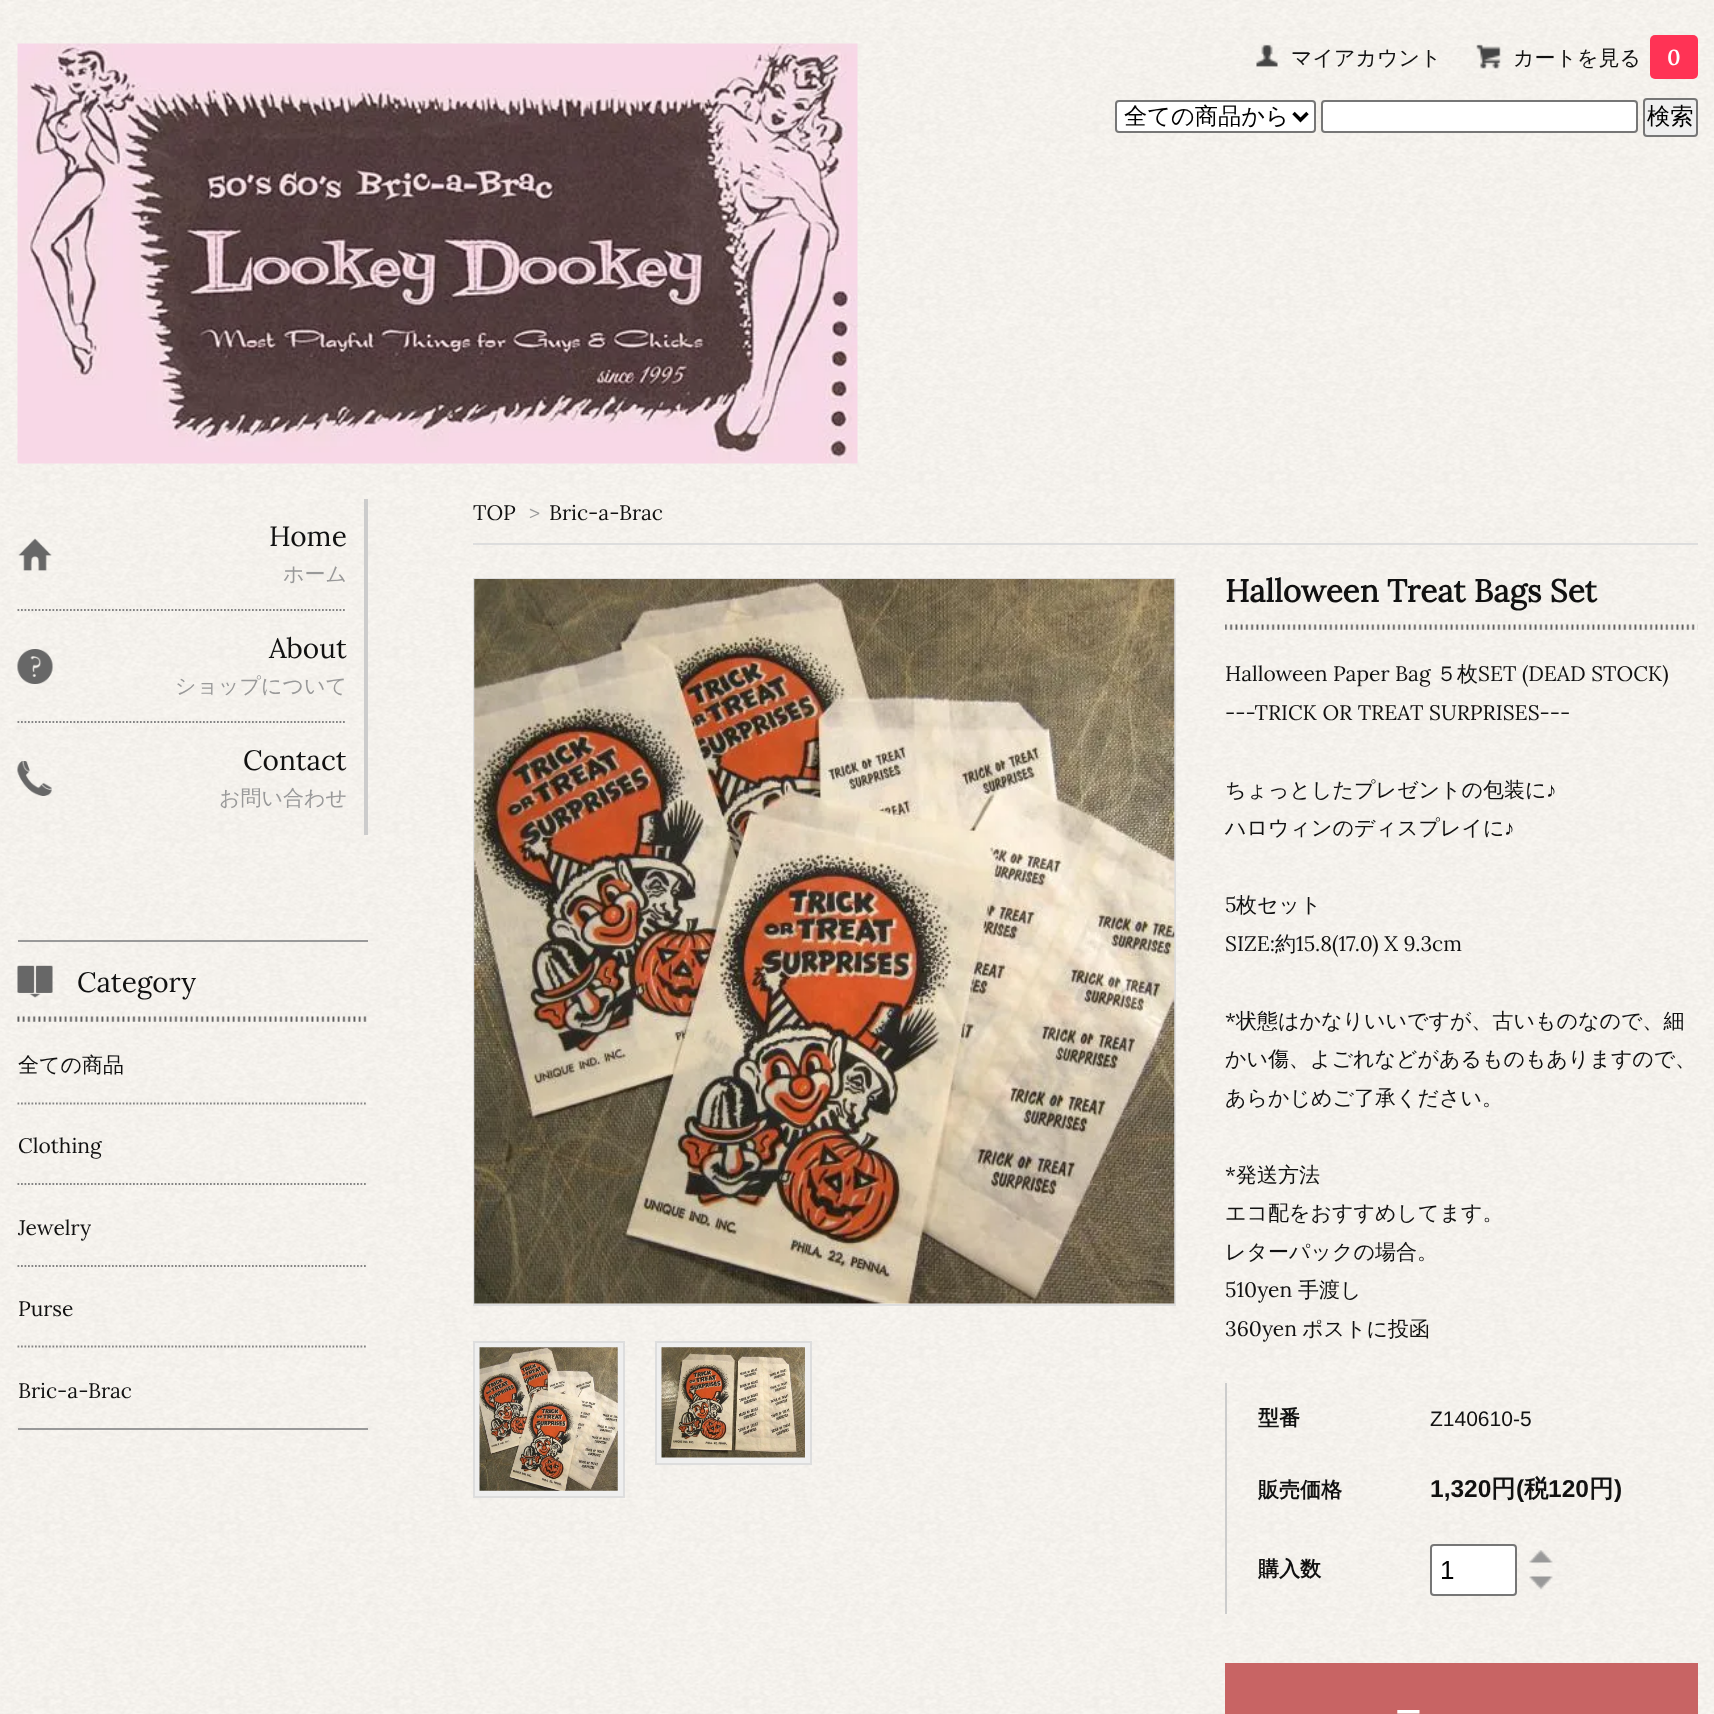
<svg xmlns="http://www.w3.org/2000/svg" width="1714" height="1714" viewBox="0 0 1714 1714">
  <rect width="100%" height="100%" fill="#ffffff"/>
  <image x="0" y="0" width="1714" height="1714" href="img1.png"/>
  <image x="17" y="43" width="841" height="421" href="img2.png"/>
  <image x="1256" y="44" width="22" height="23" href="img3.png"/>
  <text x="1291" y="65" font-family="WenQuanYi Zen Hei" font-size="21" font-weight="500" fill="#111111">マイアカウント</text>
  <image x="1476" y="44" width="25" height="25" href="img4.png"/>
  <text x="1513" y="65" font-family="WenQuanYi Zen Hei" font-size="21" font-weight="500" fill="#111111">カートを見る</text>
  <rect x="1650" y="35" width="48" height="44" rx="5" fill="#ff3355"/>
  <text x="1667" y="65" font-family="Lora" font-size="21" font-weight="bold" fill="#ffffff">0</text>
  <rect x="1116" y="101" width="199" height="31" rx="3" fill="#ffffff" stroke="#767676" stroke-width="2"/>
  <path d="M1293.5 113L1300.5 120L1307.5 113" fill="none" stroke="#000000" stroke-width="3.5"/>
  <text x="1124" y="124" font-family="WenQuanYi Zen Hei" font-size="23.25" font-weight="500" fill="#000000">全ての商品から</text>
  <rect x="1322" y="101" width="315" height="31" rx="3" fill="#ffffff" stroke="#767676" stroke-width="2"/>
  <rect x="1644" y="99" width="53" height="37" rx="3" fill="#efefef" stroke="#767676" stroke-width="2"/>
  <text x="1647" y="124" font-family="WenQuanYi Zen Hei" font-size="23.25" font-weight="500" fill="#000000">検索</text>
  <rect x="364" y="499" width="4" height="336" fill="#cccccc"/>
  <image x="18" y="538" width="34" height="33" href="img5.png"/>
  <text x="269" y="546" font-family="Lora" font-size="28" fill="#111111">Home</text>
  <text x="283" y="581" font-family="WenQuanYi Zen Hei" font-size="21" font-weight="500" fill="#999999">ホーム</text>
  <path d="M17.5 610H346.5" fill="none" stroke="#838383" stroke-width="1.8" stroke-dasharray="1.75 1.75"/>
  <image x="17" y="649" width="36" height="35" href="img6.png"/>
  <text x="269" y="658" font-family="Lora" font-size="28" fill="#111111">About</text>
  <text x="175" y="693" font-family="WenQuanYi Zen Hei" font-size="21" font-weight="500" fill="#999999">ショップについて</text>
  <path d="M17.5 722H346.5" fill="none" stroke="#838383" stroke-width="1.8" stroke-dasharray="1.75 1.75"/>
  <image x="17" y="761" width="35" height="35" href="img7.png"/>
  <text x="243" y="770" font-family="Lora" font-size="28" fill="#111111">Contact</text>
  <text x="219" y="805" font-family="WenQuanYi Zen Hei" font-size="21" font-weight="500" fill="#999999">お問い合わせ</text>
  <rect x="18" y="940" width="350" height="2" fill="#999999"/>
  <rect x="18" y="1428" width="350" height="2" fill="#999999"/>
  <image x="17" y="1016" width="350" height="6" href="img8.png"/>
  <image x="17" y="965" width="36" height="33" href="img9.png"/>
  <text x="77" y="992" font-family="Lora" font-size="28" fill="#111111">Category</text>
  <text x="18" y="1072" font-family="WenQuanYi Zen Hei" font-size="21" font-weight="500" fill="#111111">全ての商品</text>
  <path d="M17.5 1103.5H367.5" fill="none" stroke="#838383" stroke-width="1.8" stroke-dasharray="1.75 1.75"/>
  <text x="18" y="1153" font-family="Lora" font-size="21" fill="#111111">Clothing</text>
  <path d="M17.5 1184H367.5" fill="none" stroke="#838383" stroke-width="1.8" stroke-dasharray="1.75 1.75"/>
  <text x="18" y="1235" font-family="Lora" font-size="21" fill="#111111">Jewelry</text>
  <path d="M17.5 1266H367.5" fill="none" stroke="#838383" stroke-width="1.8" stroke-dasharray="1.75 1.75"/>
  <text x="18" y="1316" font-family="Lora" font-size="21" fill="#111111">Purse</text>
  <path d="M17.5 1346.5H367.5" fill="none" stroke="#838383" stroke-width="1.8" stroke-dasharray="1.75 1.75"/>
  <text x="18" y="1398" font-family="Lora" font-size="21" fill="#111111">Bric-a-Brac</text>
  <rect x="473" y="543" width="1225" height="2" fill="#dddddd"/>
  <text x="473" y="520" font-family="Lora" font-size="21" fill="#111111">TOP</text>
  <text x="529" y="520" font-family="Lora" font-size="21" fill="#999999">&gt;</text>
  <text x="549" y="520" font-family="Lora" font-size="21" fill="#111111">Bric-a-Brac</text>
  <rect x="474" y="579" width="701" height="726" fill="none" stroke="#dddddd" stroke-width="2"/>
  <image x="474" y="579" width="701" height="725" href="img10.png"/>
  <rect x="474" y="1342" width="150" height="155" fill="#efefef" stroke="#dddddd" stroke-width="2"/>
  <image x="479" y="1347" width="139" height="144" href="img11.png"/>
  <rect x="656" y="1342" width="155" height="122" fill="#efefef" stroke="#dddddd" stroke-width="2"/>
  <image x="661" y="1347" width="144" height="111" href="img12.png"/>
  <image x="1225" y="624" width="473" height="6" href="img13.png"/>
  <text x="1225" y="602" font-family="Lora" font-size="31.5" font-weight="bold" fill="#111111">Halloween Treat Bags Set</text>
  <text x="1225" y="681" font-family="Lora" font-size="21" fill="#111111">Halloween Paper Bag</text>
  <text x="1436" y="681" font-family="WenQuanYi Zen Hei" font-size="21" font-weight="500" fill="#111111">５枚</text>
  <text x="1478" y="681" font-family="Lora" font-size="21" fill="#111111">SET (DEAD STOCK)</text>
  <text x="1225" y="720" font-family="Lora" font-size="21" fill="#111111">---TRICK OR TREAT SURPRISES---</text>
  <text x="1225" y="797" font-family="WenQuanYi Zen Hei" font-size="21" font-weight="500" fill="#111111">ちょっとしたプレゼントの包装に</text>
  <text x="1546" y="797" font-family="Liberation Serif" font-size="21" fill="#111111">♪</text>
  <text x="1225" y="835" font-family="WenQuanYi Zen Hei" font-size="21" font-weight="500" fill="#111111">ハロウィンのディスプレイに</text>
  <text x="1504" y="835" font-family="Liberation Serif" font-size="21" fill="#111111">♪</text>
  <text x="1225" y="912" font-family="Lora" font-size="21" fill="#111111">5</text>
  <text x="1236" y="912" font-family="WenQuanYi Zen Hei" font-size="21" font-weight="500" fill="#111111">枚セット</text>
  <text x="1225" y="951" font-family="Lora" font-size="21" fill="#111111">SIZE:</text>
  <text x="1275" y="951" font-family="WenQuanYi Zen Hei" font-size="21" font-weight="500" fill="#111111">約</text>
  <text x="1296" y="951" font-family="Lora" font-size="21" fill="#111111">15.8(17.0) X 9.3cm</text>
  <text x="1225" y="1028" font-family="Lora" font-size="21" fill="#111111">*</text>
  <text x="1236" y="1028" font-family="WenQuanYi Zen Hei" font-size="21" font-weight="500" fill="#111111">状態はかなりいいですが、古いものなので、細</text>
  <text x="1225" y="1066" font-family="WenQuanYi Zen Hei" font-size="21" font-weight="500" fill="#111111">かい傷、よごれなどがあるものもありますので、</text>
  <text x="1225" y="1105" font-family="WenQuanYi Zen Hei" font-size="21" font-weight="500" fill="#111111">あらかじめご了承ください。</text>
  <text x="1225" y="1182" font-family="Lora" font-size="21" fill="#111111">*</text>
  <text x="1236" y="1182" font-family="WenQuanYi Zen Hei" font-size="21" font-weight="500" fill="#111111">発送方法</text>
  <text x="1225" y="1220" font-family="WenQuanYi Zen Hei" font-size="21" font-weight="500" fill="#111111">エコ配をおすすめしてます。</text>
  <text x="1225" y="1259" font-family="WenQuanYi Zen Hei" font-size="21" font-weight="500" fill="#111111">レターパックの場合。</text>
  <text x="1225" y="1297" font-family="Lora" font-size="21" fill="#111111">510yen</text>
  <text x="1298" y="1297" font-family="WenQuanYi Zen Hei" font-size="21" font-weight="500" fill="#111111">手渡し</text>
  <text x="1225" y="1336" font-family="Lora" font-size="21" fill="#111111">360yen</text>
  <text x="1302" y="1336" font-family="WenQuanYi Zen Hei" font-size="21" font-weight="500" fill="#111111">ポストに投函</text>
  <rect x="1225" y="1383" width="2" height="231" fill="#cccccc"/>
  <text x="1258" y="1425" font-family="WenQuanYi Zen Hei" font-size="21" font-weight="bold" fill="#111111">型番</text>
  <text x="1430" y="1426" font-family="Liberation Sans" font-size="21" fill="#111111">Z140610-5</text>
  <text x="1258" y="1497" font-family="WenQuanYi Zen Hei" font-size="21" font-weight="bold" fill="#111111">販売価格</text>
  <text x="1430" y="1497" font-family="Liberation Sans" font-size="24.5" font-weight="bold" fill="#111111">1,320</text>
  <text x="1491" y="1497" font-family="WenQuanYi Zen Hei" font-size="24.5" font-weight="bold" fill="#111111">円</text>
  <text x="1516" y="1497" font-family="Liberation Sans" font-size="24.5" font-weight="bold" fill="#111111">(</text>
  <text x="1524" y="1497" font-family="WenQuanYi Zen Hei" font-size="24.5" font-weight="bold" fill="#111111">税</text>
  <text x="1548" y="1497" font-family="Liberation Sans" font-size="24.5" font-weight="bold" fill="#111111">120</text>
  <text x="1589" y="1497" font-family="WenQuanYi Zen Hei" font-size="24.5" font-weight="bold" fill="#111111">円</text>
  <text x="1614" y="1497" font-family="Liberation Sans" font-size="24.5" font-weight="bold" fill="#111111">)</text>
  <text x="1258" y="1576" font-family="WenQuanYi Zen Hei" font-size="21" font-weight="bold" fill="#111111">購入数</text>
  <rect x="1431" y="1545" width="85" height="50" rx="3" fill="#ffffff" stroke="#767676" stroke-width="2"/>
  <text x="1440" y="1579" font-family="Liberation Sans" font-size="26" fill="#000000">1</text>
  <image x="1529" y="1550" width="24" height="13" href="img14.png"/>
  <image x="1529" y="1576" width="24" height="14" href="img15.png"/>
  <rect x="1225" y="1663" width="473" height="51" fill="#c86464"/>
  <text x="1395" y="1722" font-family="WenQuanYi Zen Hei" font-size="26" font-weight="bold" fill="#ffffff">ー</text>
</svg>
